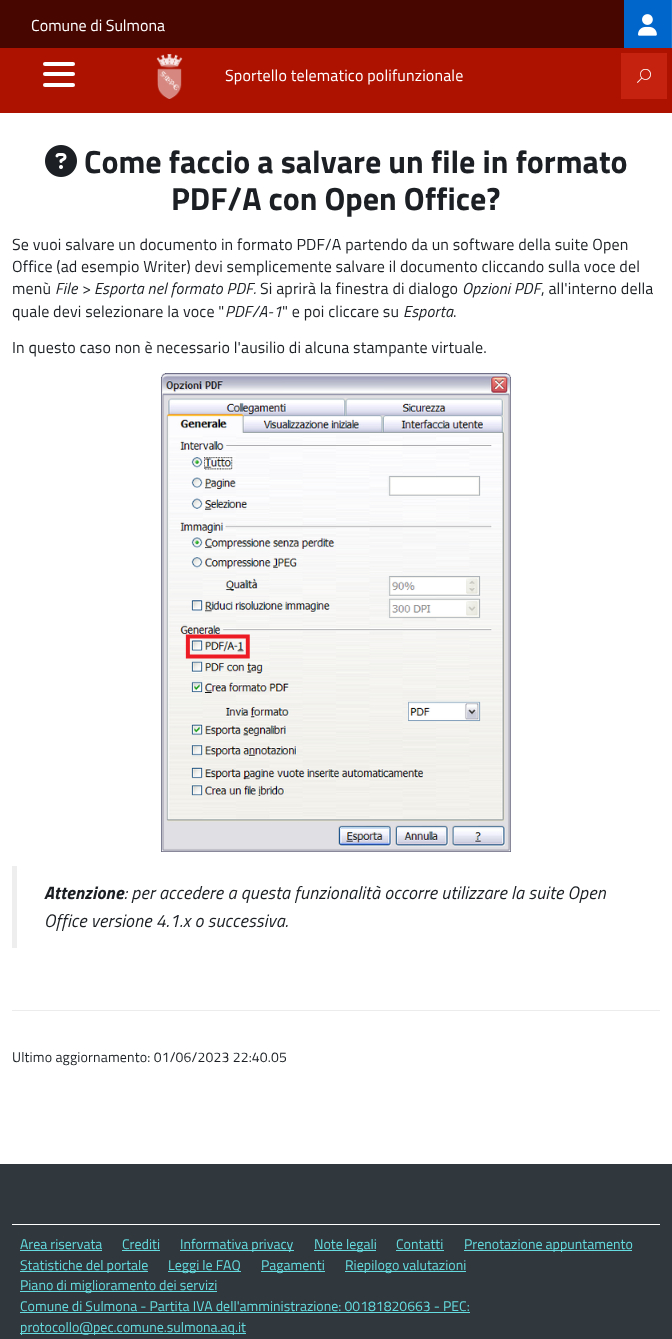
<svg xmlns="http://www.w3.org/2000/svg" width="672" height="1339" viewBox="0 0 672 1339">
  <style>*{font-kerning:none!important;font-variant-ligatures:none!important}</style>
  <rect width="100%" height="100%" fill="#ffffff"/>
  <rect x="0" y="0" width="624" height="48" fill="#470700"/>
  <text x="31" y="31" font-family="Titillium Web" font-size="16" fill="#ffffff">Comune di Sulmona</text>
  <rect x="624" y="0" width="47" height="48" fill="#0066cc"/>
  <rect x="671" y="0" width="1" height="48" fill="#1a75d1"/>
  <image x="638" y="14" width="19" height="22" href="img1.png"/>
  <rect x="0" y="48" width="672" height="65" fill="#ad1100"/>
  <rect x="43" y="72" width="32" height="4" rx="2" fill="#ffffff"/>
  <rect x="43" y="62" width="32" height="4" rx="2" fill="#ffffff"/>
  <rect x="43" y="83" width="32" height="4" rx="2" fill="#ffffff"/>
  <image x="156" y="54" width="27" height="45" href="img2.png"/>
  <text x="225" y="81" font-family="Titillium Web" font-size="16" letter-spacing="0.15" fill="#ffffff">Sportello telematico polifunzionale</text>
  <rect x="621" y="53" width="46" height="46" fill="#c62210"/>
  <text x="637" y="82" font-family="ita" font-size="14" fill="#ffffff">🔍</text>
  <image x="45" y="145" width="32" height="32" href="img3.png"/>
  <text x="84" y="173" font-family="Titillium Web" font-size="32" font-weight="bold" fill="#1c2024">Come faccio a salvare un file in formato</text>
  <text x="171" y="210" font-family="Titillium Web" font-size="32" font-weight="bold" fill="#1c2024">PDF/A con Open Office?</text>
  <text x="12" y="250" font-family="Titillium Web" font-size="16" letter-spacing="0.15" fill="#1c2024">Se vuoi salvare un documento in formato PDF/A partendo da un software della suite Open</text>
  <text x="12" y="272" font-family="Titillium Web" font-size="16" letter-spacing="0.15" fill="#1c2024">Office (ad esempio Writer) devi semplicemente salvare il documento cliccando sulla voce del</text>
  <text x="12" y="294" font-family="Titillium Web" font-size="16" letter-spacing="0.15" fill="#1c2024">menù</text>
  <text x="55" y="294" font-family="Titillium Web" font-size="16" font-style="italic" letter-spacing="0.15" fill="#1c2024">File &gt; Esporta nel formato PDF.</text>
  <text x="260" y="294" font-family="Titillium Web" font-size="16" letter-spacing="0.15" fill="#1c2024">Si aprirà la finestra di dialogo</text>
  <text x="462" y="294" font-family="Titillium Web" font-size="16" font-style="italic" letter-spacing="0.15" fill="#1c2024">Opzioni PDF</text>
  <text x="541" y="294" font-family="Titillium Web" font-size="16" letter-spacing="0.15" fill="#1c2024">, all'interno della</text>
  <text x="12" y="317" font-family="Titillium Web" font-size="16" letter-spacing="0.15" fill="#1c2024">quale devi selezionare la voce "</text>
  <text x="225" y="317" font-family="Titillium Web" font-size="16" font-style="italic" letter-spacing="0.15" fill="#1c2024">PDF/A-1</text>
  <text x="282" y="317" font-family="Titillium Web" font-size="16" letter-spacing="0.15" fill="#1c2024">" e poi cliccare su</text>
  <text x="403" y="317" font-family="Titillium Web" font-size="16" font-style="italic" letter-spacing="0.15" fill="#1c2024">Esporta</text>
  <text x="453" y="317" font-family="Titillium Web" font-size="16" letter-spacing="0.15" fill="#1c2024">.</text>
  <text x="12" y="353" font-family="Titillium Web" font-size="16" letter-spacing="0.15" fill="#1c2024">In questo caso non è necessario l'ausilio di alcuna stampante virtuale.</text>
  <image x="161" y="373" width="350" height="479" href="img4.png"/>
  <rect x="12" y="866" width="5" height="82" fill="#eeeeee"/>
  <text x="44" y="899" font-family="Titillium Web" font-size="18" font-weight="bold" font-style="italic" letter-spacing="0.15" fill="#1c2024">Attenzione</text>
  <text x="124" y="899" font-family="Titillium Web" font-size="18" font-style="italic" letter-spacing="0.15" fill="#1c2024">: per accedere a questa funzionalità occorre utilizzare la suite Open</text>
  <text x="44" y="927" font-family="Titillium Web" font-size="18" font-style="italic" letter-spacing="0.15" fill="#1c2024">Office versione 4.1.x o successiva.</text>
  <rect x="12" y="1010" width="648" height="1" fill="#ececec"/>
  <text x="12" y="1062" font-family="Titillium Web" font-size="14" letter-spacing="0.15" fill="#1c2024">Ultimo aggiornamento: 01/06/2023 22:40.05</text>
  <rect x="0" y="1164" width="672" height="175" fill="#30373d"/>
  <rect x="12" y="1224" width="648" height="1" fill="#ffffff"/>
  <text x="20" y="1249" font-family="Titillium Web" font-size="14" fill="#65dcdf">Area riservata</text>
  <rect x="20" y="1250" width="82" height="1" fill="#65dcdf"/>
  <text x="122" y="1249" font-family="Titillium Web" font-size="14" fill="#65dcdf">Crediti</text>
  <rect x="122" y="1250" width="38" height="1" fill="#65dcdf"/>
  <rect x="180" y="1250" width="114" height="1" fill="#65dcdf"/>
  <text x="180" y="1249" font-family="Titillium Web" font-size="14" fill="#65dcdf">Informativa privacy</text>
  <rect x="314" y="1250" width="62" height="1" fill="#65dcdf"/>
  <text x="314" y="1249" font-family="Titillium Web" font-size="14" fill="#65dcdf">Note legali</text>
  <text x="396" y="1249" font-family="Titillium Web" font-size="14" fill="#65dcdf">Contatti</text>
  <rect x="396" y="1250" width="48" height="1" fill="#65dcdf"/>
  <rect x="464" y="1250" width="168" height="1" fill="#65dcdf"/>
  <text x="464" y="1249" font-family="Titillium Web" font-size="14" fill="#65dcdf">Prenotazione appuntamento</text>
  <rect x="20" y="1271" width="128" height="1" fill="#65dcdf"/>
  <text x="20" y="1270" font-family="Titillium Web" font-size="14" fill="#65dcdf">Statistiche del portale</text>
  <rect x="168" y="1271" width="73" height="1" fill="#65dcdf"/>
  <text x="168" y="1270" font-family="Titillium Web" font-size="14" fill="#65dcdf">Leggi le FAQ</text>
  <rect x="261" y="1271" width="64" height="1" fill="#65dcdf"/>
  <text x="261" y="1270" font-family="Titillium Web" font-size="14" fill="#65dcdf">Pagamenti</text>
  <rect x="345" y="1271" width="121" height="1" fill="#65dcdf"/>
  <text x="345" y="1270" font-family="Titillium Web" font-size="14" fill="#65dcdf">Riepilogo valutazioni</text>
  <rect x="20" y="1291" width="197" height="1" fill="#65dcdf"/>
  <text x="20" y="1290" font-family="Titillium Web" font-size="14" fill="#65dcdf">Piano di miglioramento dei servizi</text>
  <text x="20" y="1311" font-family="Titillium Web" font-size="14" fill="#65dcdf">Comune di Sulmona - Partita IVA dell'amministrazione: 00181820663 - PEC:</text>
  <rect x="20" y="1312" width="450" height="1" fill="#65dcdf"/>
  <rect x="20" y="1333" width="226" height="1" fill="#65dcdf"/>
  <text x="20" y="1332" font-family="Titillium Web" font-size="14" fill="#65dcdf">protocollo@pec.comune.sulmona.aq.it</text>
</svg>
